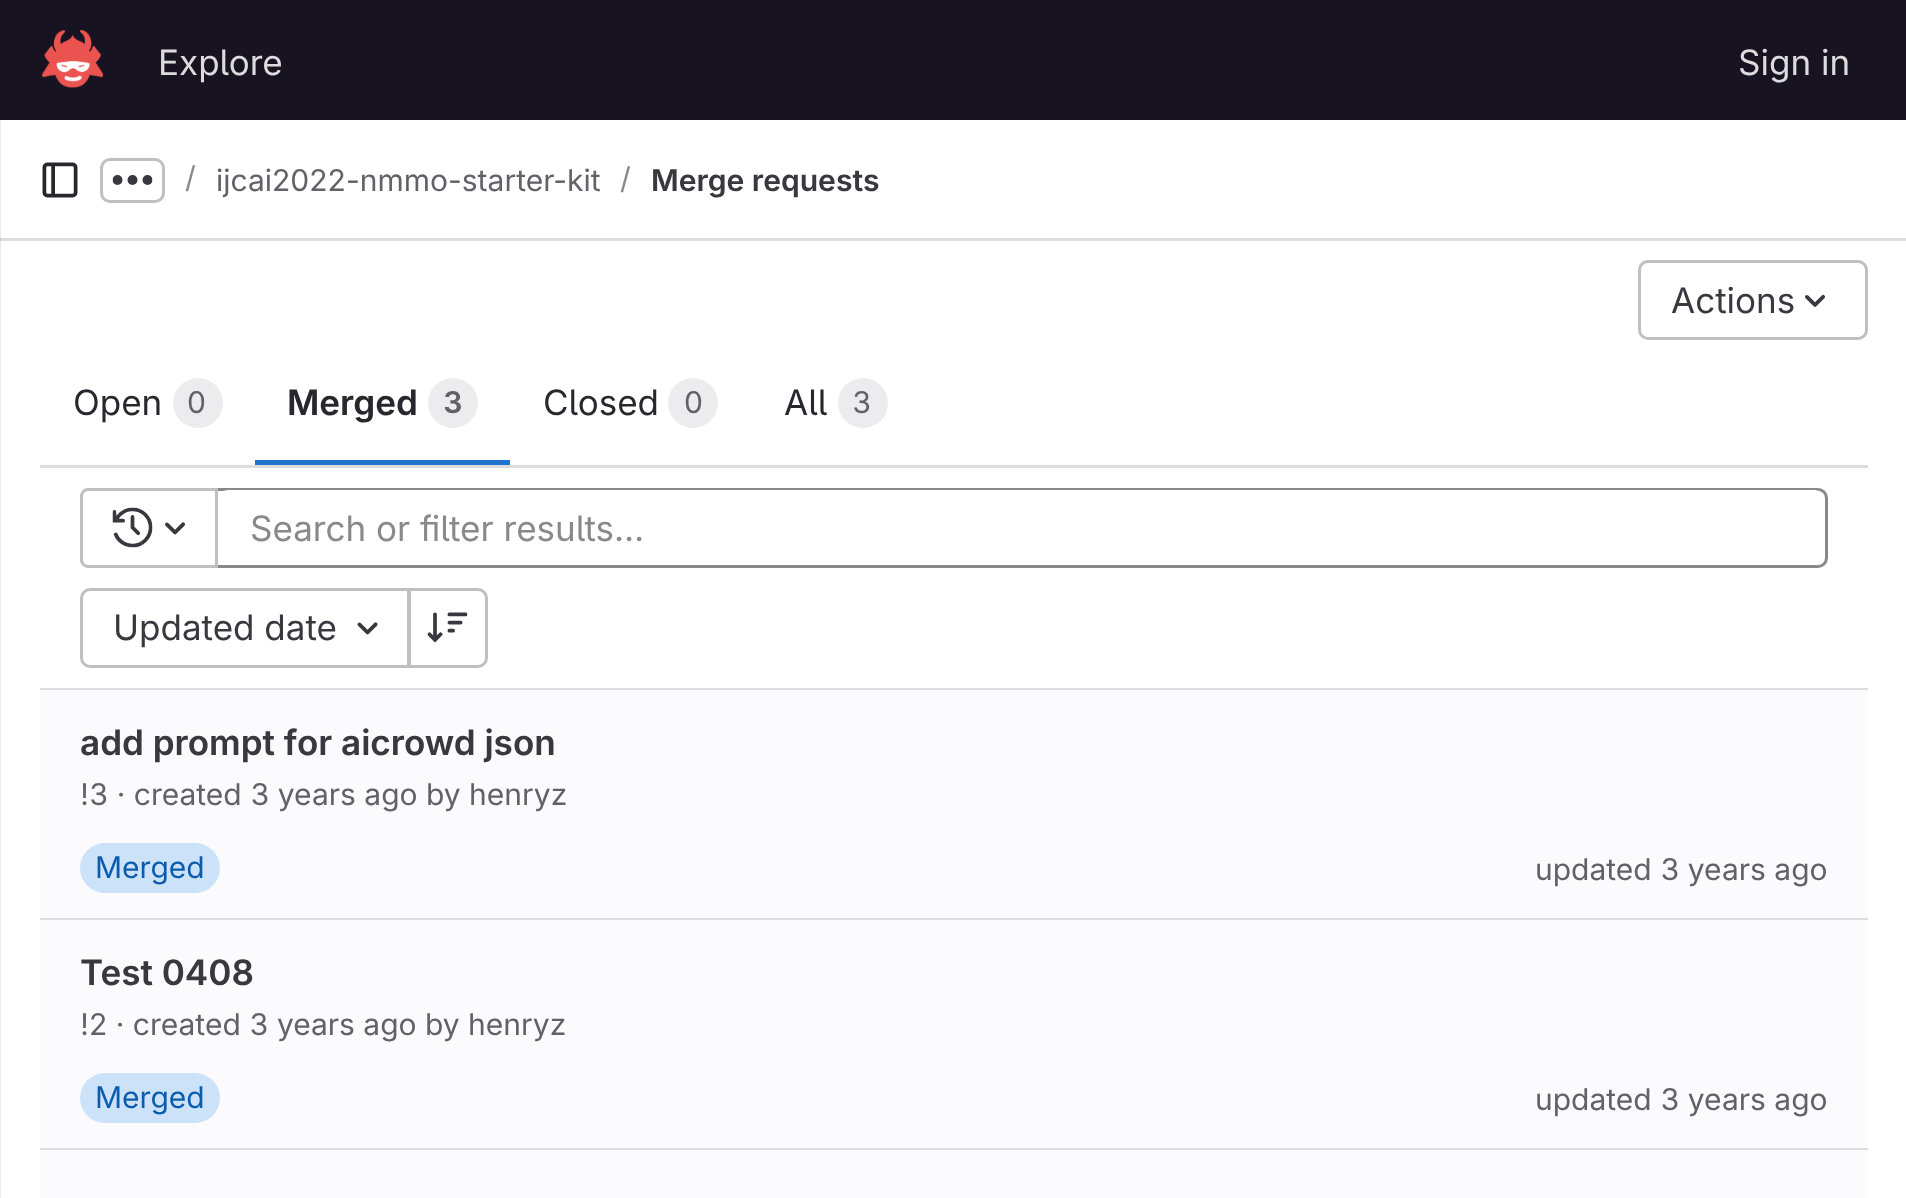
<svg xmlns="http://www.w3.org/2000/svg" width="1906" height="1198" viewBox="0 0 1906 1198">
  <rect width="100%" height="100%" fill="#ffffff"/>
  <rect x="0" y="120" width="1" height="1078" fill="#ebebeb"/>
  <rect x="0" y="0" width="1906" height="120" fill="#171321"/>
  <image x="42" y="30" width="62" height="59" href="img1.png"/>
  <text x="158" y="75" font-family="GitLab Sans" font-size="35" fill="#dcdcde">Explore</text>
  <text x="1738" y="75" font-family="GitLab Sans" font-size="35" fill="#dcdcde">Sign in</text>
  <rect x="0" y="238" width="1906" height="3" fill="#dcdcde"/>
  <rect x="0" y="238" width="1" height="3" fill="#cbcbcd"/>
  <image x="42" y="162" width="36" height="36" href="img2.png"/>
  <rect x="101.5" y="159.5" width="62" height="42" rx="8.5" fill="none" stroke="#bfbfc3" stroke-width="3"/>
  <image x="112" y="175" width="41" height="10" href="img3.png"/>
  <text x="185" y="188" font-family="GitLab Sans" font-size="30" fill="#89888d">/</text>
  <text x="216" y="191" font-family="GitLab Sans" font-size="30" fill="#626168">ijcai2022-nmmo-starter-kit</text>
  <text x="620" y="189" font-family="GitLab Sans" font-size="30" fill="#89888d">/</text>
  <text x="651" y="191" font-family="GitLab Sans" font-size="30" font-weight="600" fill="#3a383f">Merge requests</text>
  <rect x="1639.5" y="261.5" width="227" height="77" rx="8.5" fill="none" stroke="#bfbfc3" stroke-width="3"/>
  <text x="1671" y="313" font-family="GitLab Sans" font-size="35" fill="#3a383f">Actions</text>
  <image x="1805" y="294" width="21" height="13" href="img4.png"/>
  <text x="73" y="415" font-family="GitLab Sans" font-size="35" fill="#28272d">Open</text>
  <circle cx="198" cy="403" r="25" fill="#ececef"/>
  <text x="187" y="413" font-family="GitLab Sans" font-size="30" fill="#626168">0</text>
  <text x="287" y="415" font-family="GitLab Sans" font-size="35" font-weight="600" fill="#28272d">Merged</text>
  <circle cx="453" cy="403" r="25" fill="#ececef"/>
  <text x="443" y="413" font-family="GitLab Sans" font-size="30" font-weight="600" fill="#626168">3</text>
  <rect x="255" y="460" width="255" height="5" fill="#1f75cb"/>
  <text x="543" y="415" font-family="GitLab Sans" font-size="35" fill="#28272d">Closed</text>
  <circle cx="693" cy="403" r="25" fill="#ececef"/>
  <text x="684" y="413" font-family="GitLab Sans" font-size="30" fill="#626168">0</text>
  <text x="784" y="415" font-family="GitLab Sans" font-size="35" fill="#28272d">All</text>
  <circle cx="863" cy="403" r="25" fill="#ececef"/>
  <text x="852" y="413" font-family="GitLab Sans" font-size="30" fill="#626168">3</text>
  <rect x="40" y="465" width="1828" height="3" fill="#dcdcde"/>
  <rect x="40" y="688" width="1828" height="2" fill="#dcdcde"/>
  <rect x="81.5" y="489.5" width="1745" height="77" rx="8.5" fill="none" stroke="#89888d" stroke-width="3"/>
  <path d="M88 489.5H216.5V566.5H88C84.5 566.5 81.5 563.5 81.5 560V496C81.5 492.5 84.5 489.5 88 489.5Z" fill="#ffffff" stroke="#bfbfc3" stroke-width="3"/>
  <image x="112" y="507" width="41" height="41" href="img5.png"/>
  <image x="165" y="522" width="21" height="13" href="img6.png"/>
  <rect x="218" y="490" width="1607" height="75" rx="10" fill="#ffffff"/>
  <text x="250" y="541" font-family="GitLab Sans" font-size="35" fill="#89888d">Search or filter results…</text>
  <path d="M90 589.5H408.5V666.5H90C85.5 666.5 81.5 662.5 81.5 658V598C81.5 593.5 85.5 589.5 90 589.5Z" fill="none" stroke="#bfbfc3" stroke-width="3"/>
  <text x="113" y="640" font-family="GitLab Sans" font-size="35" fill="#3a383f">Updated date</text>
  <image x="357" y="622" width="21" height="13" href="img7.png"/>
  <path d="M409.5 589.5H478C482.5 589.5 486.5 593.5 486.5 598V658C486.5 662.5 482.5 666.5 478 666.5H409.5Z" fill="#ffffff" stroke="#bfbfc3" stroke-width="3"/>
  <image x="427" y="612" width="41" height="31" href="img8.png"/>
  <rect x="40" y="690" width="1828" height="228" fill="#fbfafd"/>
  <rect x="40" y="918" width="1828" height="2" fill="#dcdcde"/>
  <text x="80" y="755" font-family="GitLab Sans" font-size="35" font-weight="600" fill="#3a383f">add prompt for aicrowd json</text>
  <text x="80" y="805" font-family="GitLab Sans" font-size="30" fill="#626168">!3 · created 3 years ago by henryz</text>
  <rect x="80" y="843" width="140" height="50" rx="25" fill="#cbe2f9"/>
  <text x="95" y="878" font-family="GitLab Sans" font-size="30" fill="#0b5cad">Merged</text>
  <text x="1535" y="880" font-family="GitLab Sans" font-size="30" fill="#626168">updated 3 years ago</text>
  <rect x="40" y="920" width="1828" height="228" fill="#fbfafd"/>
  <rect x="40" y="1148" width="1828" height="2" fill="#dcdcde"/>
  <text x="80" y="985" font-family="GitLab Sans" font-size="35" font-weight="600" fill="#3a383f">Test 0408</text>
  <text x="80" y="1035" font-family="GitLab Sans" font-size="30" fill="#626168">!2 · created 3 years ago by henryz</text>
  <rect x="80" y="1073" width="140" height="50" rx="25" fill="#cbe2f9"/>
  <text x="95" y="1108" font-family="GitLab Sans" font-size="30" fill="#0b5cad">Merged</text>
  <text x="1535" y="1110" font-family="GitLab Sans" font-size="30" fill="#626168">updated 3 years ago</text>
  <rect x="40" y="1150" width="1828" height="48" fill="#fbfafd"/>
</svg>
